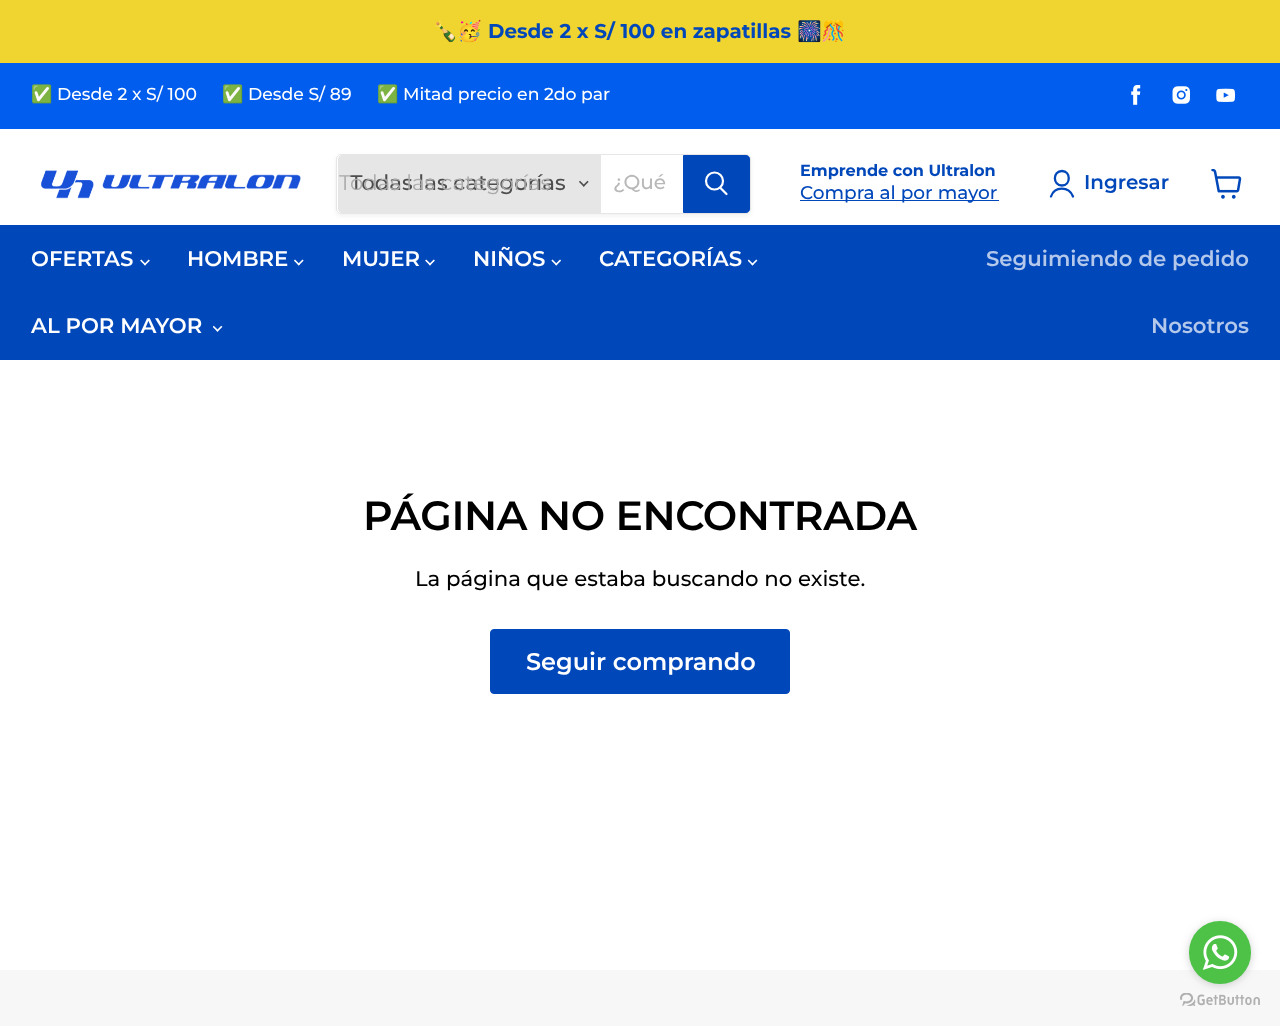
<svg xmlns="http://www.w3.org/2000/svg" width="1280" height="1026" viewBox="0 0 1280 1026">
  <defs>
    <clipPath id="clip1"><path d="M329 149H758V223H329ZM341 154H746C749 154 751 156 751 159V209C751 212 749 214 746 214H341C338 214 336 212 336 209V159C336 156 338 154 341 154Z" clip-rule="evenodd"/></clipPath>
    <filter id="blur1" x="-50%" y="-200%" width="200%" height="500%"><feGaussianBlur stdDeviation="2"/></filter>
    <filter id="blur2" x="-50%" y="-200%" width="200%" height="500%"><feGaussianBlur stdDeviation="4.5"/></filter>
  </defs>
  <rect width="100%" height="100%" fill="#ffffff"/>
  <rect x="0" y="0" width="1280" height="63" fill="#f0d430"/>
  <text x="433" y="38" font-family="Noto Color Emoji" font-size="19.9" font-weight="bold" fill="#0047ba">🍾🥳</text>
  <text x="488" y="38" font-family="Montserrat" font-size="19.9" font-weight="bold" fill="#0047ba">Desde 2 x S/ 100 en zapatillas</text>
  <text x="797" y="38" font-family="Noto Color Emoji" font-size="19.9" font-weight="bold" fill="#0047ba">🎆🎊</text>
  <rect x="0" y="63" width="1280" height="66" fill="#005ded"/>
  <text x="31" y="100" font-family="Noto Color Emoji" font-size="17.25" fill="#ffffff">✅</text>
  <text x="57" y="100" font-family="Montserrat" font-size="17.25" font-weight="500" fill="#ffffff">Desde 2 x S/ 100</text>
  <text x="222" y="100" font-family="Noto Color Emoji" font-size="17.25" fill="#ffffff">✅</text>
  <text x="248" y="100" font-family="Montserrat" font-size="17.25" font-weight="500" fill="#ffffff">Desde S/ 89</text>
  <text x="377" y="100" font-family="Noto Color Emoji" font-size="17.25" fill="#ffffff">✅</text>
  <text x="403" y="100" font-family="Montserrat" font-size="17.25" font-weight="500" fill="#ffffff">Mitad precio en 2do par</text>
  <image x="1131" y="85" width="10" height="20" href="img1.png"/>
  <image x="1172" y="86" width="18" height="18" href="img2.png"/>
  <image x="1216" y="88" width="20" height="14" href="img3.png"/>
  <rect x="0" y="225" width="1280" height="135" fill="#0047ba"/>
  <image x="41" y="170" width="260" height="29" href="img4.png"/>
  <g clip-path="url(#clip1)">
    <rect x="336" y="156" width="415" height="60" rx="5" fill="#808080" fill-opacity="0.11" filter="url(#blur1)"/>
  </g>
  <rect x="336.5" y="154.5" width="414" height="59" rx="4.5" fill="none" stroke="#808080" stroke-opacity="0.2"/>
  <path d="M342 155H601V213H342C340 213 338 211 338 209V159C338 157 340 155 342 155Z" fill="#e6e6e6"/>
  <text x="350" y="190" font-family="Montserrat" font-size="21.25" font-weight="500" fill="#4d4d4d">Todas las categorías</text>
  <text x="339" y="190" font-family="Montserrat" font-size="21.25" font-weight="100" fill="#aaaaaa">Todas las categorías</text>
  <image x="579" y="180" width="10" height="7" href="img5.png"/>
  <text x="613" y="189" font-family="Montserrat" font-size="20" font-weight="500" fill="#b8b8b8">¿Qué</text>
  <path d="M683.5 155.5H746C748 155.5 749.5 157 749.5 159V209C749.5 211 748 212.5 746 212.5H683.5Z" fill="#0047ba" stroke="#0047ba"/>
  <path d="M726.5 194L720.5 188" fill="none" stroke="#ffffff" stroke-width="2.2" stroke-linecap="round"/>
  <circle cx="714.5" cy="181" r="8.5" fill="none" stroke="#ffffff" stroke-width="2.2"/>
  <text x="800" y="176" font-family="Montserrat" font-size="16.1" font-weight="bold" fill="#0047ba">Emprende con Ultralon</text>
  <rect x="800" y="200" width="199" height="1" fill="#0047ba"/>
  <text x="800" y="199" font-family="Montserrat" font-size="18.5" font-weight="500" fill="#0047ba">Compra al por mayor</text>
  <path d="M1062 185.5C1071 185.5 1071 171 1062 171C1052.5 171 1052.5 185.5 1062 185.5ZM1073 196.5C1069 186 1054.5 186 1051 196.5" fill="none" stroke="#0047ba" stroke-width="2.3" stroke-linecap="round" stroke-linejoin="round"/>
  <text x="1084" y="189" font-family="Montserrat" font-size="19.9" font-weight="600" fill="#0047ba">Ingresar</text>
  <image x="1211" y="169" width="31" height="30" href="img6.png"/>
  <text x="31" y="266" font-family="Montserrat" font-size="21.25" font-weight="600" fill="#ffffff">OFERTAS</text>
  <image x="140" y="259" width="10" height="7" href="img7.png"/>
  <text x="187" y="266" font-family="Montserrat" font-size="21.25" font-weight="600" fill="#ffffff">HOMBRE</text>
  <image x="294" y="259" width="10" height="7" href="img8.png"/>
  <text x="342" y="266" font-family="Montserrat" font-size="21.25" font-weight="600" fill="#ffffff">MUJER</text>
  <image x="425" y="259" width="10" height="7" href="img7.png"/>
  <text x="473" y="266" font-family="Montserrat" font-size="21.25" font-weight="600" fill="#ffffff">NIÑOS</text>
  <image x="551" y="259" width="10" height="7" href="img9.png"/>
  <text x="599" y="266" font-family="Montserrat" font-size="21.25" font-weight="600" fill="#ffffff">CATEGORÍAS</text>
  <image x="748" y="259" width="10" height="7" href="img10.png"/>
  <text x="31" y="333" font-family="Montserrat" font-size="21.25" font-weight="600" fill="#ffffff">AL POR MAYOR</text>
  <image x="213" y="325" width="10" height="7" href="img11.png"/>
  <text x="986" y="266" font-family="Montserrat" font-size="21.25" font-weight="600" fill="#b3c8ea">Seguimiendo de pedido</text>
  <text x="1151" y="333" font-family="Montserrat" font-size="21.25" font-weight="600" fill="#b3c8ea">Nosotros</text>
  <text x="363" y="530" font-family="Montserrat" font-size="40.9" font-weight="600" letter-spacing="-0.4" fill="#000000">PÁGINA NO ENCONTRADA</text>
  <text x="415" y="586" font-family="Montserrat" font-size="21.25" font-weight="500" fill="#000000">La página que estaba buscando no existe.</text>
  <rect x="490.5" y="629.5" width="299" height="64" rx="3.5" fill="#0047ba" stroke="#0047ba"/>
  <text x="526" y="670" font-family="Montserrat" font-size="24" font-weight="600" fill="#ffffff">Seguir comprando</text>
  <rect x="0" y="970" width="1280" height="56" fill="#f7f7f7"/>
  <image x="1180" y="993" width="80" height="13" href="img13.png"/>
  <rect x="1189" y="923" width="62" height="62" rx="31" fill="#888888" fill-opacity="0.4" filter="url(#blur2)"/>
  <rect x="1189" y="921" width="62" height="63" rx="31" fill="#4dc247"/>
  <image x="1202" y="935" width="36" height="35" href="img12.png"/>
</svg>
